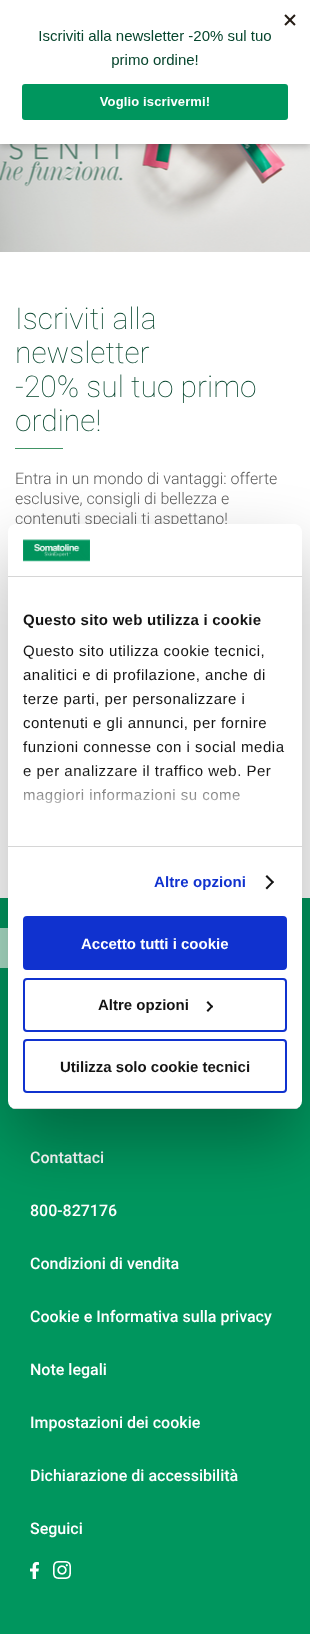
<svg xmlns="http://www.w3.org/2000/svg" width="310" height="1634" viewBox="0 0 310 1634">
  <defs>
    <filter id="blur1" x="-50%" y="-200%" width="200%" height="500%"><feGaussianBlur stdDeviation="3"/></filter>
    <filter id="blur2" x="-50%" y="-200%" width="200%" height="500%"><feGaussianBlur stdDeviation="34"/></filter>
    <linearGradient id="g1" gradientUnits="userSpaceOnUse" x1="149" y1="846" x2="149" y2="771"><stop offset="0" stop-color="#ffffff"/><stop offset="0.5" stop-color="#ffffff" stop-opacity="0.8"/><stop offset="1" stop-color="#ffffff" stop-opacity="0"/></linearGradient>
    <clipPath id="clip1"><rect x="8" y="524" width="294" height="585" rx="8"/></clipPath>
  </defs>
  <rect width="100%" height="100%" fill="#ffffff"/>
  <image x="0" y="144" width="310" height="108" href="img2.png"/>
  <rect x="0" y="3" width="310" height="144" fill="#000000" fill-opacity="0.2" filter="url(#blur1)"/>
  <rect x="0" y="0" width="310" height="144" fill="#ffffff"/>
  <image x="22" y="14" width="274" height="106" href="img1.png"/>
  <text x="15" y="329" font-family="Roboto" font-size="30" font-weight="100" fill="#06452d">Iscriviti alla</text>
  <text x="15" y="363" font-family="Roboto" font-size="30" font-weight="100" fill="#06452d">newsletter</text>
  <text x="15" y="397" font-family="Roboto" font-size="30" font-weight="100" fill="#06452d">-20% sul tuo primo</text>
  <text x="15" y="431" font-family="Roboto" font-size="30" font-weight="100" fill="#06452d">ordine!</text>
  <rect x="15" y="448" width="48" height="1" fill="#419465"/>
  <text x="15" y="484" font-family="Roboto" font-size="16" font-weight="300" fill="#5b5b5b">Entra in un mondo di vantaggi: offerte</text>
  <text x="15" y="504" font-family="Roboto" font-size="16" font-weight="300" fill="#5b5b5b">esclusive, consigli di bellezza e</text>
  <text x="15" y="524" font-family="Roboto" font-size="16" font-weight="300" fill="#5b5b5b">contenuti speciali ti aspettano!</text>
  <rect x="0" y="898" width="310" height="736" fill="#00965e"/>
  <rect x="0" y="928" width="8" height="40" fill="#aadfc7"/>
  <text x="30" y="1163" font-family="Roboto" font-size="16" font-weight="500" fill="#ffffff">Contattaci</text>
  <text x="30" y="1216" font-family="Roboto" font-size="16" font-weight="500" fill="#ffffff">800-827176</text>
  <text x="30" y="1269" font-family="Roboto" font-size="16" font-weight="500" fill="#ffffff">Condizioni di vendita</text>
  <text x="30" y="1322" font-family="Roboto" font-size="16" font-weight="500" fill="#ffffff">Cookie e Informativa sulla privacy</text>
  <text x="30" y="1375" font-family="Roboto" font-size="16" font-weight="500" fill="#ffffff">Note legali</text>
  <text x="30" y="1428" font-family="Roboto" font-size="16" font-weight="500" fill="#ffffff">Impostazioni dei cookie</text>
  <text x="30" y="1481" font-family="Roboto" font-size="16" font-weight="500" fill="#ffffff">Dichiarazione di accessibilità</text>
  <text x="30" y="1534" font-family="Roboto" font-size="16" font-weight="500" fill="#ffffff">Seguici</text>
  <image x="30" y="1562" width="9" height="17" href="img3.png"/>
  <image x="53" y="1561" width="18" height="18" href="img4.png"/>
  <rect x="8" y="556" width="294" height="585" rx="8" fill="#000000" fill-opacity="0.3" filter="url(#blur2)"/>
  <rect x="8" y="524" width="294" height="585" rx="8" fill="#ffffff"/>
  <rect x="8" y="576" width="294" height="1" fill="#d6d6d6"/>
  <image x="23" y="539" width="67" height="23" href="img5.png"/>
  <rect x="8" y="846" width="294" height="1" fill="#d6d6d6"/>
  <text x="23" y="625" font-family="Liberation Sans" font-size="15" font-weight="bold" letter-spacing="0.25" fill="#141414">Questo sito web utilizza i cookie</text>
  <text x="23" y="656" font-family="Liberation Sans" font-size="15" letter-spacing="0.5" fill="#141414">Questo sito utilizza cookie tecnici,</text>
  <text x="23" y="680" font-family="Liberation Sans" font-size="15" letter-spacing="0.5" fill="#141414">analitici e di profilazione, anche di</text>
  <text x="23" y="704" font-family="Liberation Sans" font-size="15" letter-spacing="0.5" fill="#141414">terze parti, per personalizzare i</text>
  <text x="23" y="728" font-family="Liberation Sans" font-size="15" letter-spacing="0.5" fill="#141414">contenuti e gli annunci, per fornire</text>
  <text x="23" y="752" font-family="Liberation Sans" font-size="15" letter-spacing="0.5" fill="#141414">funzioni connesse con i social media</text>
  <text x="23" y="776" font-family="Liberation Sans" font-size="15" letter-spacing="0.5" fill="#141414">e per analizzare il traffico web. Per</text>
  <text x="23" y="800" font-family="Liberation Sans" font-size="15" letter-spacing="0.5" fill="#141414">maggiori informazioni su come</text>
  <rect x="24" y="772" width="245" height="32" fill="url(#g1)"/>
  <text x="154" y="887" font-family="Liberation Sans" font-size="15" font-weight="bold" letter-spacing="0.1" fill="#1032cf">Altre opzioni</text>
  <path d="M267 875L274 882L272.5 883.5L265.5 876.5Z" fill="#141414"/>
  <path d="M272.5 881L274 882L267 889.5L265.5 888Z" fill="#141414"/>
  <g clip-path="url(#clip1)">
    <rect x="8" y="1108" width="294" height="1" fill="#d6d6d6"/>
  </g>
  <rect x="24" y="917" width="262" height="52" rx="3" fill="#1032cf" stroke="#1032cf" stroke-width="2"/>
  <text x="81" y="949" font-family="Liberation Sans" font-size="15" font-weight="bold" fill="#ffffff">Accetto tutti i cookie</text>
  <rect x="24" y="979" width="262" height="52" rx="3" fill="none" stroke="#1032cf" stroke-width="2"/>
  <text x="98" y="1010" font-family="Liberation Sans" font-size="15" font-weight="bold" fill="#141414">Altre opzioni</text>
  <path d="M208 1001L213 1006.5L212 1008L206.5 1002.5Z" fill="#141414"/>
  <path d="M212 1005L213 1006.5L208 1012L206.5 1010.5Z" fill="#141414"/>
  <rect x="24" y="1040" width="262" height="52" rx="3" fill="none" stroke="#1032cf" stroke-width="2"/>
  <text x="60" y="1072" font-family="Liberation Sans" font-size="15" font-weight="bold" fill="#141414">Utilizza solo cookie tecnici</text>
</svg>
